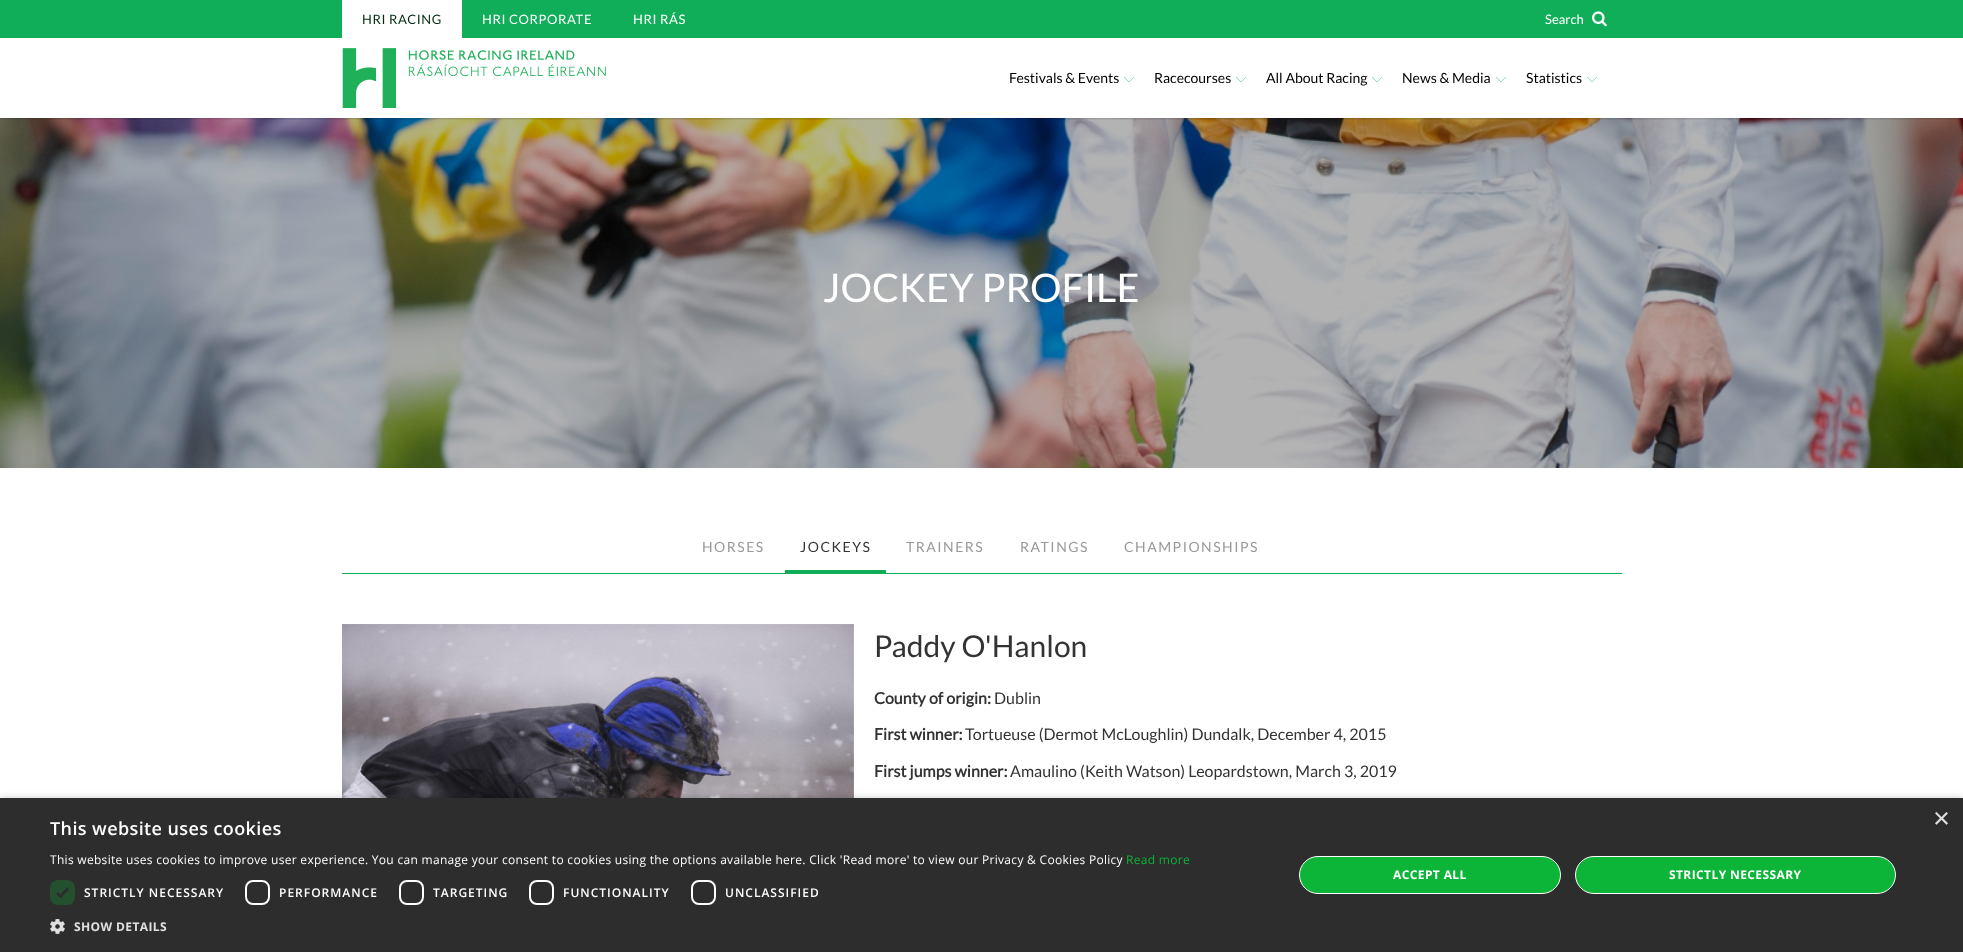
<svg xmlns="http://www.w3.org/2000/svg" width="1963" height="952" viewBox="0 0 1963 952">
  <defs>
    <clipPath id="clip1"><rect x="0" y="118" width="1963" height="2"/></clipPath>
    <filter id="blur1" x="-50%" y="-200%" width="200%" height="500%"><feGaussianBlur stdDeviation="1"/></filter>
    <filter id="blur2" x="-50%" y="-200%" width="200%" height="500%"><feGaussianBlur stdDeviation="4"/></filter>
  </defs>
  <rect width="100%" height="100%" fill="#ffffff"/>
  <image x="0" y="118" width="1963" height="350" href="img4.png"/>
  <g clip-path="url(#clip1)">
    <rect x="0" y="39" width="1963" height="80" fill="#000000" fill-opacity="0.18" filter="url(#blur1)"/>
  </g>
  <rect x="0" y="0" width="1963" height="38" fill="#11ae59"/>
  <rect x="342" y="0" width="120" height="38" fill="#ffffff"/>
  <text x="362" y="24" font-family="Lato" font-size="13" letter-spacing="0.6" fill="#022d11">HRI RACING</text>
  <text x="482" y="24" font-family="Lato" font-size="13" letter-spacing="0.6" fill="#ffffff">HRI CORPORATE</text>
  <text x="633" y="24" font-family="Lato" font-size="13" letter-spacing="0.6" fill="#ffffff">HRI RÁS</text>
  <text x="1545" y="24" font-family="Lato" font-size="13" fill="#ffffff">Search</text>
  <image x="1592" y="11" width="15" height="16" href="img1.png"/>
  <image x="342" y="48" width="264" height="60" href="img2.png"/>
  <text x="1009" y="83" font-family="Lato" font-size="14" fill="#000000">Festivals &amp; Events</text>
  <image x="1124" y="76" width="10" height="7" href="img3.png"/>
  <text x="1154" y="83" font-family="Lato" font-size="14" fill="#000000">Racecourses</text>
  <image x="1236" y="76" width="10" height="7" href="img3.png"/>
  <text x="1266" y="83" font-family="Lato" font-size="14" fill="#000000">All About Racing</text>
  <image x="1372" y="76" width="10" height="7" href="img3.png"/>
  <text x="1402" y="83" font-family="Lato" font-size="14" fill="#000000">News &amp; Media</text>
  <image x="1496" y="76" width="10" height="7" href="img3.png"/>
  <text x="1526" y="83" font-family="Lato" font-size="14" fill="#000000">Statistics</text>
  <image x="1587" y="76" width="10" height="7" href="img3.png"/>
  <text x="823" y="302" font-family="Lato" font-size="39.5" fill="#ffffff">JOCKEY PROFILE</text>
  <rect x="342" y="573" width="1280" height="1" fill="#11ae59"/>
  <text x="702" y="552" font-family="Lato" font-size="14" letter-spacing="1.5" fill="#999999">HORSES</text>
  <rect x="785" y="570" width="101" height="3" fill="#11ae59"/>
  <text x="800" y="552" font-family="Lato" font-size="14" letter-spacing="1.5" fill="#333333">JOCKEYS</text>
  <text x="906" y="552" font-family="Lato" font-size="14" letter-spacing="1.5" fill="#999999">TRAINERS</text>
  <text x="1020" y="552" font-family="Lato" font-size="14" letter-spacing="1.5" fill="#999999">RATINGS</text>
  <text x="1124" y="552" font-family="Lato" font-size="14" letter-spacing="1.5" fill="#999999">CHAMPIONSHIPS</text>
  <image x="342" y="624" width="512" height="174" href="img5.png"/>
  <text x="874" y="657" font-family="Lato" font-size="30" fill="#333333">Paddy O'Hanlon</text>
  <text x="874" y="704" font-family="Lato" font-size="16" font-weight="bold" fill="#333333">County of origin:</text>
  <text x="994" y="704" font-family="Lato" font-size="16" fill="#333333">Dublin</text>
  <text x="874" y="740" font-family="Lato" font-size="16" font-weight="bold" fill="#333333">First winner:</text>
  <text x="965" y="740" font-family="Lato" font-size="16" fill="#333333">Tortueuse (Dermot McLoughlin) Dundalk, December 4, 2015</text>
  <text x="874" y="777" font-family="Lato" font-size="16" font-weight="bold" fill="#333333">First jumps winner:</text>
  <text x="1010" y="777" font-family="Lato" font-size="16" fill="#333333">Amaulino (Keith Watson) Leopardstown, March 3, 2019</text>
  <rect x="1" y="800" width="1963" height="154" fill="#000000" fill-opacity="0.35" filter="url(#blur2)"/>
  <rect x="0" y="798" width="1963" height="154" fill="#2d2d2d"/>
  <text x="1933" y="828" font-family="Liberation Sans" font-size="29" fill="#e0e0e0">×</text>
  <text x="50" y="835" font-family="Open Sans" font-size="18" font-weight="600" letter-spacing="0.4" fill="#ffffff">This website uses cookies</text>
  <text x="50" y="864" font-family="Open Sans" font-size="12" letter-spacing="0.3" fill="#ffffff">This website uses cookies to improve user experience. You can manage your consent to cookies using the options available here. Click 'Read more' to view our Privacy &amp; Cookies Policy</text>
  <text x="1126" y="864" font-family="Open Sans" font-size="12" letter-spacing="0.3" fill="#0cb437">Read more</text>
  <rect x="50" y="880" width="25" height="25" rx="8" fill="#245030"/>
  <path d="M57 893L60.5 896.5L68 888.5" fill="none" stroke="#2d2d2d" stroke-width="2.6"/>
  <text x="84" y="897" font-family="Open Sans" font-size="12" font-weight="600" letter-spacing="1" fill="#ffffff">STRICTLY NECESSARY</text>
  <rect x="246" y="881" width="23" height="23" rx="7" fill="none" stroke="#ffffff" stroke-width="2"/>
  <text x="279" y="897" font-family="Open Sans" font-size="12" font-weight="600" letter-spacing="1" fill="#ffffff">PERFORMANCE</text>
  <rect x="400" y="881" width="23" height="23" rx="7" fill="none" stroke="#ffffff" stroke-width="2"/>
  <text x="433" y="897" font-family="Open Sans" font-size="12" font-weight="600" letter-spacing="1" fill="#ffffff">TARGETING</text>
  <rect x="530" y="881" width="23" height="23" rx="7" fill="none" stroke="#ffffff" stroke-width="2"/>
  <text x="563" y="897" font-family="Open Sans" font-size="12" font-weight="600" letter-spacing="1" fill="#ffffff">FUNCTIONALITY</text>
  <rect x="692" y="881" width="23" height="23" rx="7" fill="none" stroke="#ffffff" stroke-width="2"/>
  <text x="725" y="897" font-family="Open Sans" font-size="12" font-weight="600" letter-spacing="1" fill="#ffffff">UNCLASSIFIED</text>
  <image x="50" y="919" width="15" height="15" href="img6.png"/>
  <text x="74" y="931" font-family="Open Sans" font-size="12" font-weight="bold" letter-spacing="0.4" fill="#e0e0e0">SHOW DETAILS</text>
  <rect x="1299.5" y="856.5" width="261" height="37" rx="18.5" fill="#0cb437" stroke="#ffffff"/>
  <text x="1393" y="879" font-family="Open Sans" font-size="12" font-weight="bold" letter-spacing="0.4" fill="#ffffff">ACCEPT ALL</text>
  <rect x="1575.5" y="856.5" width="320" height="37" rx="18.5" fill="#0cb437" stroke="#ffffff"/>
  <text x="1669" y="879" font-family="Open Sans" font-size="12" font-weight="bold" letter-spacing="0.4" fill="#ffffff">STRICTLY NECESSARY</text>
</svg>
